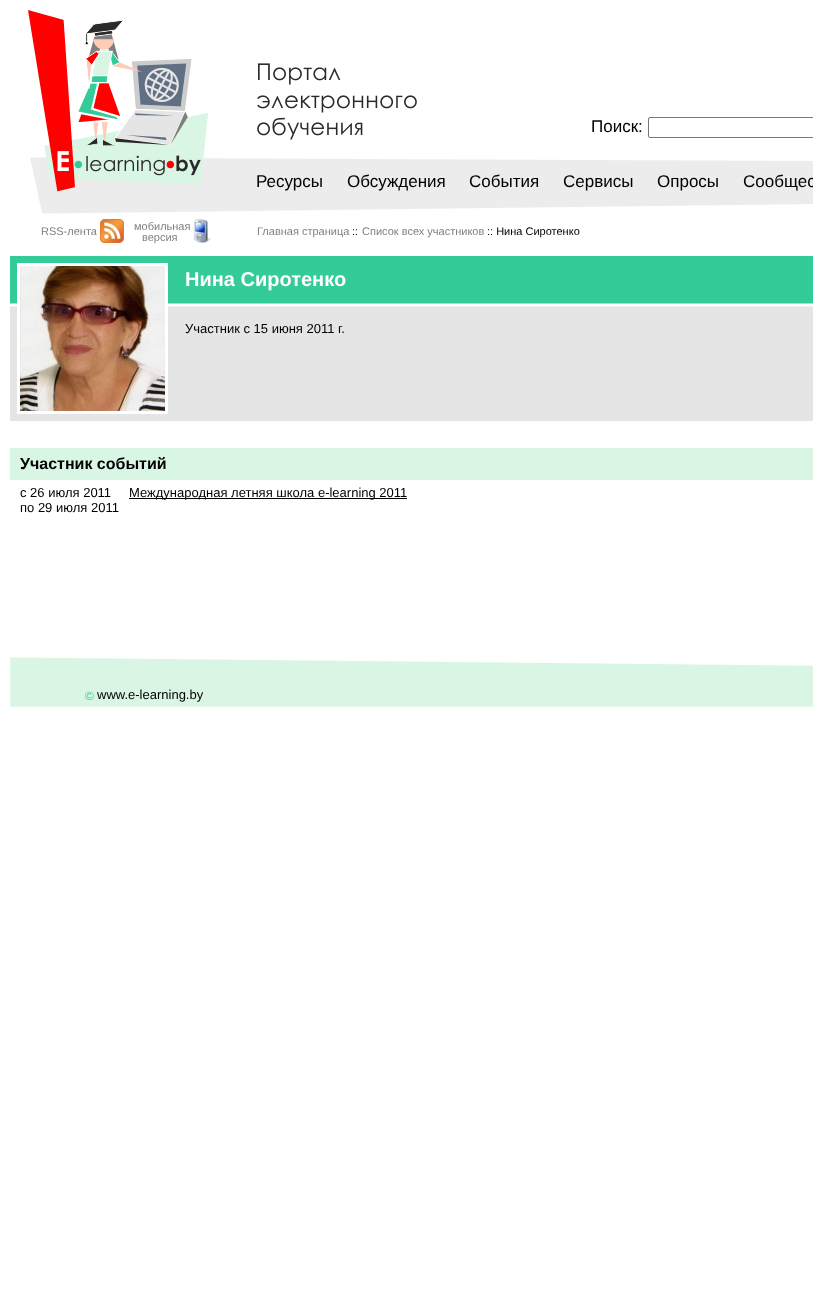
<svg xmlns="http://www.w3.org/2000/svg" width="813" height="1293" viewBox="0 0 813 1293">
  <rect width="100%" height="100%" fill="#ffffff"/>
  <image x="28" y="10" width="785" height="204" href="img1.png"/>
  <text x="591" y="132" font-family="Liberation Sans" font-size="17" fill="#000000">Поиск:</text>
  <rect x="648.5" y="117.5" width="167" height="20" rx="1.5" fill="none" stroke="#767676"/>
  <text x="256" y="187" font-family="Liberation Sans" font-size="17" fill="#000000">Ресурсы</text>
  <text x="347" y="187" font-family="Liberation Sans" font-size="17" fill="#000000">Обсуждения</text>
  <text x="469" y="187" font-family="Liberation Sans" font-size="17" fill="#000000">События</text>
  <text x="563" y="187" font-family="Liberation Sans" font-size="17" fill="#000000">Сервисы</text>
  <text x="657" y="187" font-family="Liberation Sans" font-size="17" fill="#000000">Опросы</text>
  <text x="743" y="187" font-family="Liberation Sans" font-size="17" fill="#000000">Сообщес</text>
  <text x="41" y="235" font-family="Liberation Sans" font-size="11" fill="#808080">RSS-лента</text>
  <image x="100" y="219" width="24" height="24" href="img2.png"/>
  <text x="134" y="230" font-family="Liberation Sans" font-size="11" fill="#808080">мобильная</text>
  <text x="142" y="241" font-family="Liberation Sans" font-size="11" fill="#808080">версия</text>
  <image x="193" y="219" width="18" height="24" href="img3.png"/>
  <text x="257" y="235" font-family="Liberation Sans" font-size="11" fill="#808080">Главная страница</text>
  <text x="352" y="235" font-family="Liberation Sans" font-size="11" fill="#000000">::</text>
  <text x="362" y="235" font-family="Liberation Sans" font-size="11" fill="#808080">Список всех участников</text>
  <text x="487" y="235" font-family="Liberation Sans" font-size="11" fill="#000000">:: Нина Сиротенко</text>
  <rect x="10" y="307" width="803" height="114" fill="#e5e5e5"/>
  <image x="10" y="256" width="165" height="51" href="img4.png"/>
  <rect x="18.5" y="264.5" width="148" height="148" fill="none" stroke="#ffffff" stroke-width="3"/>
  <image x="20" y="266" width="145" height="145" href="img5.png"/>
  <image x="175" y="256" width="638" height="51" href="img6.png"/>
  <text x="185" y="286" font-family="Liberation Sans" font-size="20" font-weight="bold" fill="#ffffff">Нина Сиротенко</text>
  <text x="185" y="333" font-family="Liberation Sans" font-size="13" fill="#000000">Участник с 15 июня 2011 г.</text>
  <rect x="10" y="448" width="803" height="32" fill="#d9f5e4"/>
  <text x="20" y="469" font-family="Liberation Sans" font-size="16" font-weight="bold" fill="#000000">Участник событий</text>
  <text x="20" y="497" font-family="Liberation Sans" font-size="13" fill="#000000">с 26 июля 2011</text>
  <text x="20" y="512" font-family="Liberation Sans" font-size="13" fill="#000000">по 29 июля 2011</text>
  <rect x="129" y="498" width="278" height="1" fill="#000000"/>
  <text x="129" y="497" font-family="Liberation Sans" font-size="13" fill="#000000">Международная летняя школа e-learning 2011</text>
  <image x="10" y="657" width="803" height="50" href="img7.png"/>
  <text x="85" y="700" font-family="Liberation Sans" font-size="12" fill="#33cc99">©</text>
  <text x="97" y="699" font-family="Liberation Sans" font-size="13" fill="#000000">www.e-learning.by</text>
</svg>
